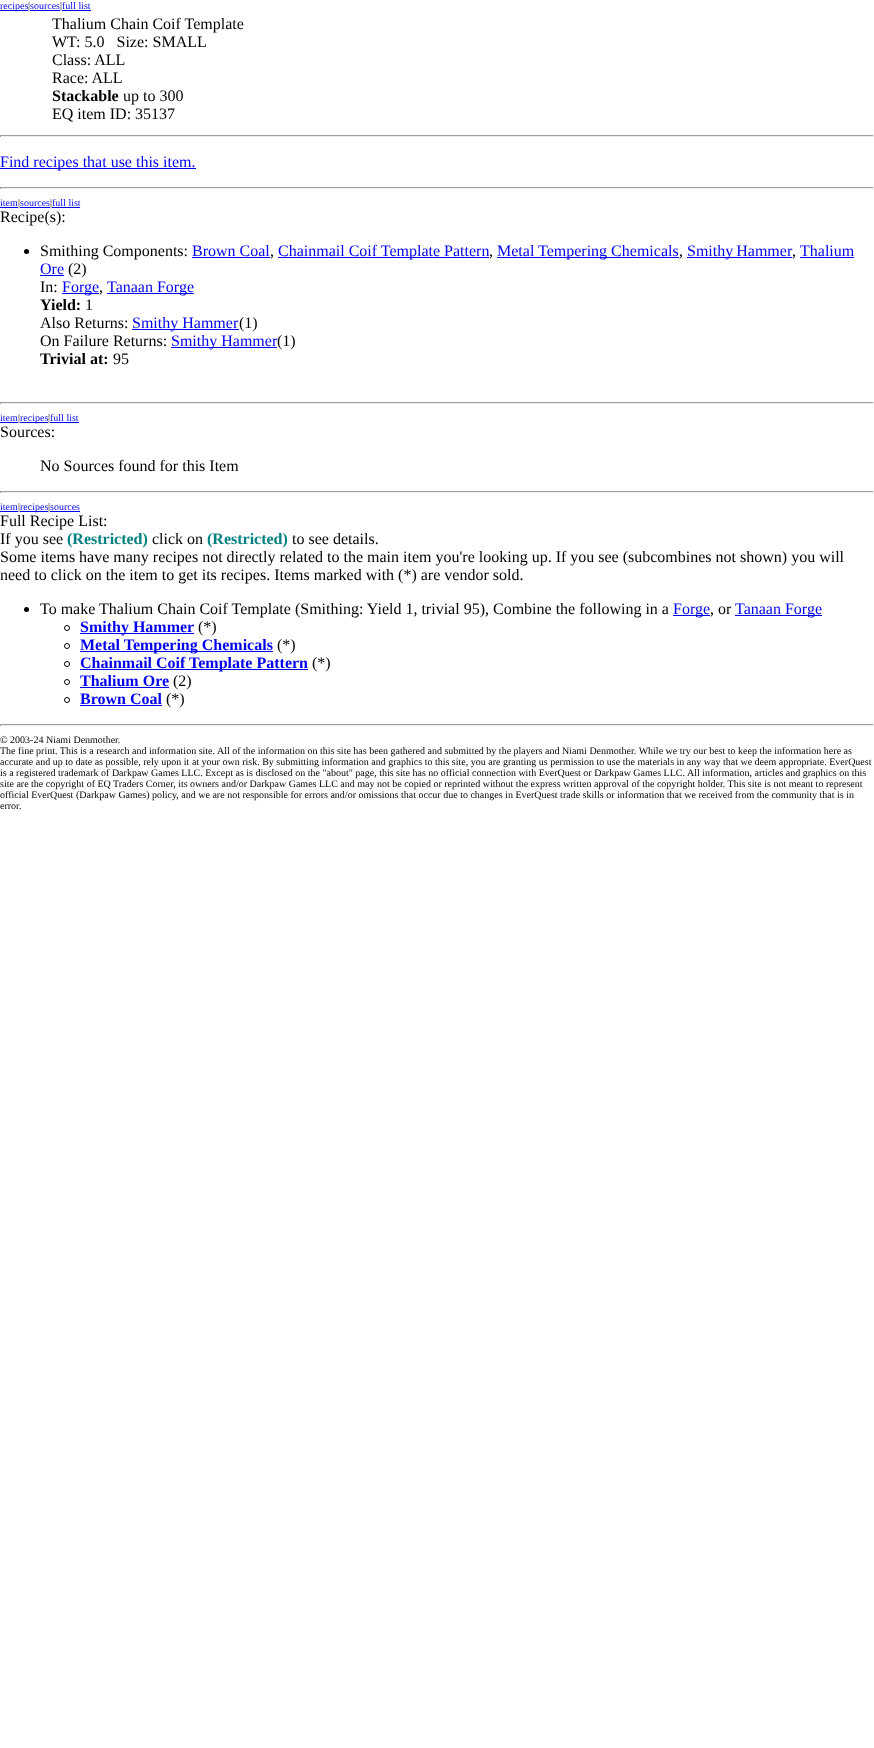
<svg xmlns="http://www.w3.org/2000/svg" width="874" height="1748" viewBox="0 0 874 1748">
  <rect width="100%" height="100%" fill="#ffffff"/>
  <rect x="0" y="10" width="28" height="1" fill="#0000ee"/>
  <text x="0" y="9" font-family="Liberation Serif" font-size="10" fill="#0000ee">recipes</text>
  <text x="28" y="9" font-family="Liberation Serif" font-size="10" fill="#000000">|</text>
  <rect x="30" y="10" width="30" height="1" fill="#0000ee"/>
  <text x="30" y="9" font-family="Liberation Serif" font-size="10" fill="#0000ee">sources</text>
  <text x="60" y="9" font-family="Liberation Serif" font-size="10" fill="#000000">|</text>
  <rect x="62" y="10" width="29" height="1" fill="#0000ee"/>
  <text x="62" y="9" font-family="Liberation Serif" font-size="10" fill="#0000ee">full list</text>
  <text x="52" y="29" font-family="Liberation Serif" font-size="16" fill="#000000">Thalium Chain Coif Template</text>
  <text x="52" y="47" font-family="Liberation Serif" font-size="16" fill="#000000" xml:space="preserve">WT: 5.0   Size: SMALL</text>
  <text x="52" y="65" font-family="Liberation Serif" font-size="16" fill="#000000">Class: ALL</text>
  <text x="52" y="83" font-family="Liberation Serif" font-size="16" fill="#000000">Race: ALL</text>
  <text x="52" y="101" font-family="Liberation Serif" font-size="16" font-weight="bold" fill="#000000">Stackable</text>
  <text x="123" y="101" font-family="Liberation Serif" font-size="16" fill="#000000">up to 300</text>
  <text x="52" y="119" font-family="Liberation Serif" font-size="16" fill="#000000">EQ item ID: 35137</text>
  <rect x="0" y="135" width="874" height="1" fill="#9f9f9f"/>
  <rect x="873" y="135" width="1" height="2" fill="#eeeeee"/>
  <rect x="0" y="136" width="874" height="1" fill="#eeeeee"/>
  <rect x="0" y="135" width="1" height="2" fill="#9f9f9f"/>
  <rect x="0" y="168" width="196" height="1" fill="#0000ee"/>
  <text x="0" y="167" font-family="Liberation Serif" font-size="16" fill="#0000ee">Find recipes that use this item.</text>
  <rect x="0" y="187" width="874" height="1" fill="#9f9f9f"/>
  <rect x="873" y="187" width="1" height="2" fill="#eeeeee"/>
  <rect x="0" y="188" width="874" height="1" fill="#eeeeee"/>
  <rect x="0" y="187" width="1" height="2" fill="#9f9f9f"/>
  <text x="0" y="206" font-family="Liberation Serif" font-size="10" fill="#0000ee">item</text>
  <text x="18" y="206" font-family="Liberation Serif" font-size="10" fill="#000000">|</text>
  <rect x="0" y="207" width="18" height="1" fill="#0000ee"/>
  <rect x="20" y="207" width="30" height="1" fill="#0000ee"/>
  <text x="20" y="206" font-family="Liberation Serif" font-size="10" fill="#0000ee">sources</text>
  <text x="50" y="206" font-family="Liberation Serif" font-size="10" fill="#000000">|</text>
  <rect x="52" y="207" width="28" height="1" fill="#0000ee"/>
  <text x="52" y="206" font-family="Liberation Serif" font-size="10" fill="#0000ee">full list</text>
  <text x="0" y="222" font-family="Liberation Serif" font-size="16" fill="#000000">Recipe(s):</text>
  <circle cx="26.5" cy="251.5" r="2.5" fill="#000000"/>
  <text x="40" y="256" font-family="Liberation Serif" font-size="16" fill="#000000">Smithing Components:</text>
  <text x="192" y="256" font-family="Liberation Serif" font-size="16" fill="#0000ee">Brown Coal</text>
  <rect x="192" y="257" width="78" height="1" fill="#0000ee"/>
  <rect x="278" y="257" width="211" height="1" fill="#0000ee"/>
  <text x="278" y="256" font-family="Liberation Serif" font-size="16" fill="#0000ee">Chainmail Coif Template Pattern</text>
  <rect x="497" y="257" width="182" height="1" fill="#0000ee"/>
  <text x="497" y="256" font-family="Liberation Serif" font-size="16" fill="#0000ee">Metal Tempering Chemicals</text>
  <rect x="687" y="257" width="105" height="1" fill="#0000ee"/>
  <text x="687" y="256" word-spacing="-1" font-family="Liberation Serif" font-size="16" fill="#0000ee">Smithy Hammer</text>
  <text x="800" y="256" font-family="Liberation Serif" font-size="16" fill="#0000ee">Thalium</text>
  <rect x="800" y="257" width="54" height="1" fill="#0000ee"/>
  <text x="270" y="256" font-family="Liberation Serif" font-size="16" fill="#000000">,</text>
  <text x="489" y="256" font-family="Liberation Serif" font-size="16" fill="#000000">,</text>
  <text x="679" y="256" font-family="Liberation Serif" font-size="16" fill="#000000">,</text>
  <text x="792" y="256" font-family="Liberation Serif" font-size="16" fill="#000000">,</text>
  <text x="40" y="274" font-family="Liberation Serif" font-size="16" fill="#0000ee">Ore</text>
  <rect x="40" y="275" width="24" height="1" fill="#0000ee"/>
  <text x="68" y="274" font-family="Liberation Serif" font-size="16" fill="#000000">(2)</text>
  <text x="40" y="292" font-family="Liberation Serif" font-size="16" fill="#000000">In:</text>
  <rect x="62" y="293" width="37" height="1" fill="#0000ee"/>
  <text x="62" y="292" font-family="Liberation Serif" font-size="16" fill="#0000ee">Forge</text>
  <text x="99" y="292" font-family="Liberation Serif" font-size="16" fill="#000000">,</text>
  <rect x="107" y="293" width="87" height="1" fill="#0000ee"/>
  <text x="107" y="292" font-family="Liberation Serif" font-size="16" fill="#0000ee">Tanaan Forge</text>
  <text x="40" y="310" font-family="Liberation Serif" font-size="16" font-weight="bold" fill="#000000">Yield:</text>
  <text x="85" y="310" font-family="Liberation Serif" font-size="16" fill="#000000">1</text>
  <text x="40" y="328" font-family="Liberation Serif" font-size="16" fill="#000000">Also Returns:</text>
  <rect x="132" y="329" width="107" height="1" fill="#0000ee"/>
  <text x="132" y="328" font-family="Liberation Serif" font-size="16" fill="#0000ee">Smithy Hammer</text>
  <text x="239" y="328" font-family="Liberation Serif" font-size="16" fill="#000000">(1)</text>
  <text x="40" y="346" font-family="Liberation Serif" font-size="16" fill="#000000">On Failure Returns:</text>
  <rect x="171" y="347" width="106" height="1" fill="#0000ee"/>
  <text x="171" y="346" font-family="Liberation Serif" font-size="16" fill="#0000ee">Smithy Hammer</text>
  <text x="277" y="346" font-family="Liberation Serif" font-size="16" fill="#000000">(1)</text>
  <text x="40" y="364" font-family="Liberation Serif" font-size="16" font-weight="bold" fill="#000000">Trivial at:</text>
  <text x="113" y="364" font-family="Liberation Serif" font-size="16" fill="#000000">95</text>
  <rect x="0" y="402" width="874" height="1" fill="#9f9f9f"/>
  <rect x="873" y="402" width="1" height="2" fill="#eeeeee"/>
  <rect x="0" y="403" width="874" height="1" fill="#eeeeee"/>
  <rect x="0" y="402" width="1" height="2" fill="#9f9f9f"/>
  <text x="0" y="421" font-family="Liberation Serif" font-size="10" fill="#0000ee">item</text>
  <text x="18" y="421" font-family="Liberation Serif" font-size="10" fill="#000000">|</text>
  <rect x="0" y="422" width="18" height="1" fill="#0000ee"/>
  <rect x="20" y="422" width="28" height="1" fill="#0000ee"/>
  <text x="20" y="421" font-family="Liberation Serif" font-size="10" fill="#0000ee">recipes</text>
  <text x="48" y="421" font-family="Liberation Serif" font-size="10" fill="#000000">|</text>
  <rect x="50" y="422" width="29" height="1" fill="#0000ee"/>
  <text x="50" y="421" font-family="Liberation Serif" font-size="10" fill="#0000ee">full list</text>
  <text x="0" y="437" font-family="Liberation Serif" font-size="16" fill="#000000">Sources:</text>
  <text x="40" y="471" font-family="Liberation Serif" font-size="16" fill="#000000">No Sources found for this Item</text>
  <rect x="0" y="491" width="874" height="1" fill="#9f9f9f"/>
  <rect x="873" y="491" width="1" height="2" fill="#eeeeee"/>
  <rect x="0" y="492" width="874" height="1" fill="#eeeeee"/>
  <rect x="0" y="491" width="1" height="2" fill="#9f9f9f"/>
  <text x="0" y="510" font-family="Liberation Serif" font-size="10" fill="#0000ee">item</text>
  <text x="18" y="510" font-family="Liberation Serif" font-size="10" fill="#000000">|</text>
  <rect x="0" y="511" width="18" height="1" fill="#0000ee"/>
  <rect x="20" y="511" width="28" height="1" fill="#0000ee"/>
  <text x="20" y="510" font-family="Liberation Serif" font-size="10" fill="#0000ee">recipes</text>
  <text x="48" y="510" font-family="Liberation Serif" font-size="10" fill="#000000">|</text>
  <rect x="50" y="511" width="30" height="1" fill="#0000ee"/>
  <text x="50" y="510" font-family="Liberation Serif" font-size="10" fill="#0000ee">sources</text>
  <text x="0" y="526" font-family="Liberation Serif" font-size="16" fill="#000000">Full Recipe List:</text>
  <text x="0" y="544" font-family="Liberation Serif" font-size="16" fill="#000000">If you see</text>
  <text x="67" y="544" font-family="Liberation Serif" font-size="16" font-weight="bold" fill="#008080">(Restricted)</text>
  <text x="152" y="544" font-family="Liberation Serif" font-size="16" fill="#000000">click on</text>
  <text x="207" y="544" font-family="Liberation Serif" font-size="16" font-weight="bold" fill="#008080">(Restricted)</text>
  <text x="292" y="544" font-family="Liberation Serif" font-size="16" fill="#000000">to see details.</text>
  <text x="0" y="562" font-family="Liberation Serif" font-size="16" fill="#000000">Some items have many recipes not directly related to the main item you're looking up. If you see (subcombines not shown) you will</text>
  <text x="0" y="580" font-family="Liberation Serif" font-size="16" fill="#000000">need to click on the item to get its recipes. Items marked with (*) are vendor sold.</text>
  <circle cx="26.5" cy="609.5" r="2.5" fill="#000000"/>
  <text x="40" y="614" font-family="Liberation Serif" font-size="16" fill="#000000">To make Thalium Chain Coif Template (Smithing: Yield 1, trivial 95), Combine the following in a</text>
  <rect x="673" y="615" width="37" height="1" fill="#0000ee"/>
  <text x="673" y="614" font-family="Liberation Serif" font-size="16" fill="#0000ee">Forge</text>
  <text x="710" y="614" font-family="Liberation Serif" font-size="16" fill="#000000">, or</text>
  <rect x="735" y="615" width="87" height="1" fill="#0000ee"/>
  <text x="735" y="614" font-family="Liberation Serif" font-size="16" fill="#0000ee">Tanaan Forge</text>
  <circle cx="67" cy="628" r="2.5" fill="none" stroke="#000000"/>
  <rect x="80" y="633" width="114" height="1" fill="#0000ee"/>
  <text x="80" y="632" font-family="Liberation Serif" font-size="16" font-weight="bold" fill="#0000ee">Smithy Hammer</text>
  <text x="198" y="632" font-family="Liberation Serif" font-size="16" fill="#000000">(*)</text>
  <circle cx="67" cy="646" r="2.5" fill="none" stroke="#000000"/>
  <rect x="80" y="651" width="193" height="1" fill="#0000ee"/>
  <text x="80" y="650" font-family="Liberation Serif" font-size="16" font-weight="bold" fill="#0000ee">Metal Tempering Chemicals</text>
  <text x="277" y="650" font-family="Liberation Serif" font-size="16" fill="#000000">(*)</text>
  <circle cx="67" cy="664" r="2.5" fill="none" stroke="#000000"/>
  <rect x="80" y="669" width="228" height="1" fill="#0000ee"/>
  <text x="80" y="668" font-family="Liberation Serif" font-size="16" font-weight="bold" fill="#0000ee">Chainmail Coif Template Pattern</text>
  <text x="312" y="668" font-family="Liberation Serif" font-size="16" fill="#000000">(*)</text>
  <circle cx="67" cy="682" r="2.5" fill="none" stroke="#000000"/>
  <text x="80" y="686" font-family="Liberation Serif" font-size="16" font-weight="bold" fill="#0000ee">Thalium Ore</text>
  <rect x="80" y="687" width="89" height="1" fill="#0000ee"/>
  <text x="173" y="686" font-family="Liberation Serif" font-size="16" fill="#000000">(2)</text>
  <circle cx="67" cy="700" r="2.5" fill="none" stroke="#000000"/>
  <text x="80" y="704" font-family="Liberation Serif" font-size="16" font-weight="bold" fill="#0000ee">Brown Coal</text>
  <rect x="80" y="705" width="82" height="1" fill="#0000ee"/>
  <text x="166" y="704" font-family="Liberation Serif" font-size="16" fill="#000000">(*)</text>
  <rect x="0" y="724" width="874" height="1" fill="#9f9f9f"/>
  <rect x="873" y="724" width="1" height="2" fill="#eeeeee"/>
  <rect x="0" y="725" width="874" height="1" fill="#eeeeee"/>
  <rect x="0" y="724" width="1" height="2" fill="#9f9f9f"/>
  <text x="0" y="743" font-family="Liberation Serif" font-size="10" fill="#000000">© 2003-24 Niami Denmother.</text>
  <text x="0" y="754" font-family="Liberation Serif" font-size="10" fill="#000000">The fine print. This is a research and information site. All of the information on this site has been gathered and submitted by the players and Niami Denmother. While we try our best to keep the information here as</text>
  <text x="0" y="765" font-family="Liberation Serif" font-size="10" fill="#000000">accurate and up to date as possible, rely upon it at your own risk. By submitting information and graphics to this site, you are granting us permission to use the materials in any way that we deem appropriate. EverQuest</text>
  <text x="0" y="776" font-family="Liberation Serif" font-size="10" fill="#000000">is a registered trademark of Darkpaw Games LLC. Except as is disclosed on the "about" page, this site has no official connection with EverQuest or Darkpaw Games LLC. All information, articles and graphics on this</text>
  <text x="0" y="787" font-family="Liberation Serif" font-size="10" fill="#000000">site are the copyright of EQ Traders Corner, its owners and/or Darkpaw Games LLC and may not be copied or reprinted without the express written approval of the copyright holder. This site is not meant to represent</text>
  <text x="0" y="798" font-family="Liberation Serif" font-size="10" fill="#000000">official EverQuest (Darkpaw Games) policy, and we are not responsible for errors and/or omissions that occur due to changes in EverQuest trade skills or information that we received from the community that is in</text>
  <text x="0" y="809" font-family="Liberation Serif" font-size="10" fill="#000000">error.</text>
</svg>
